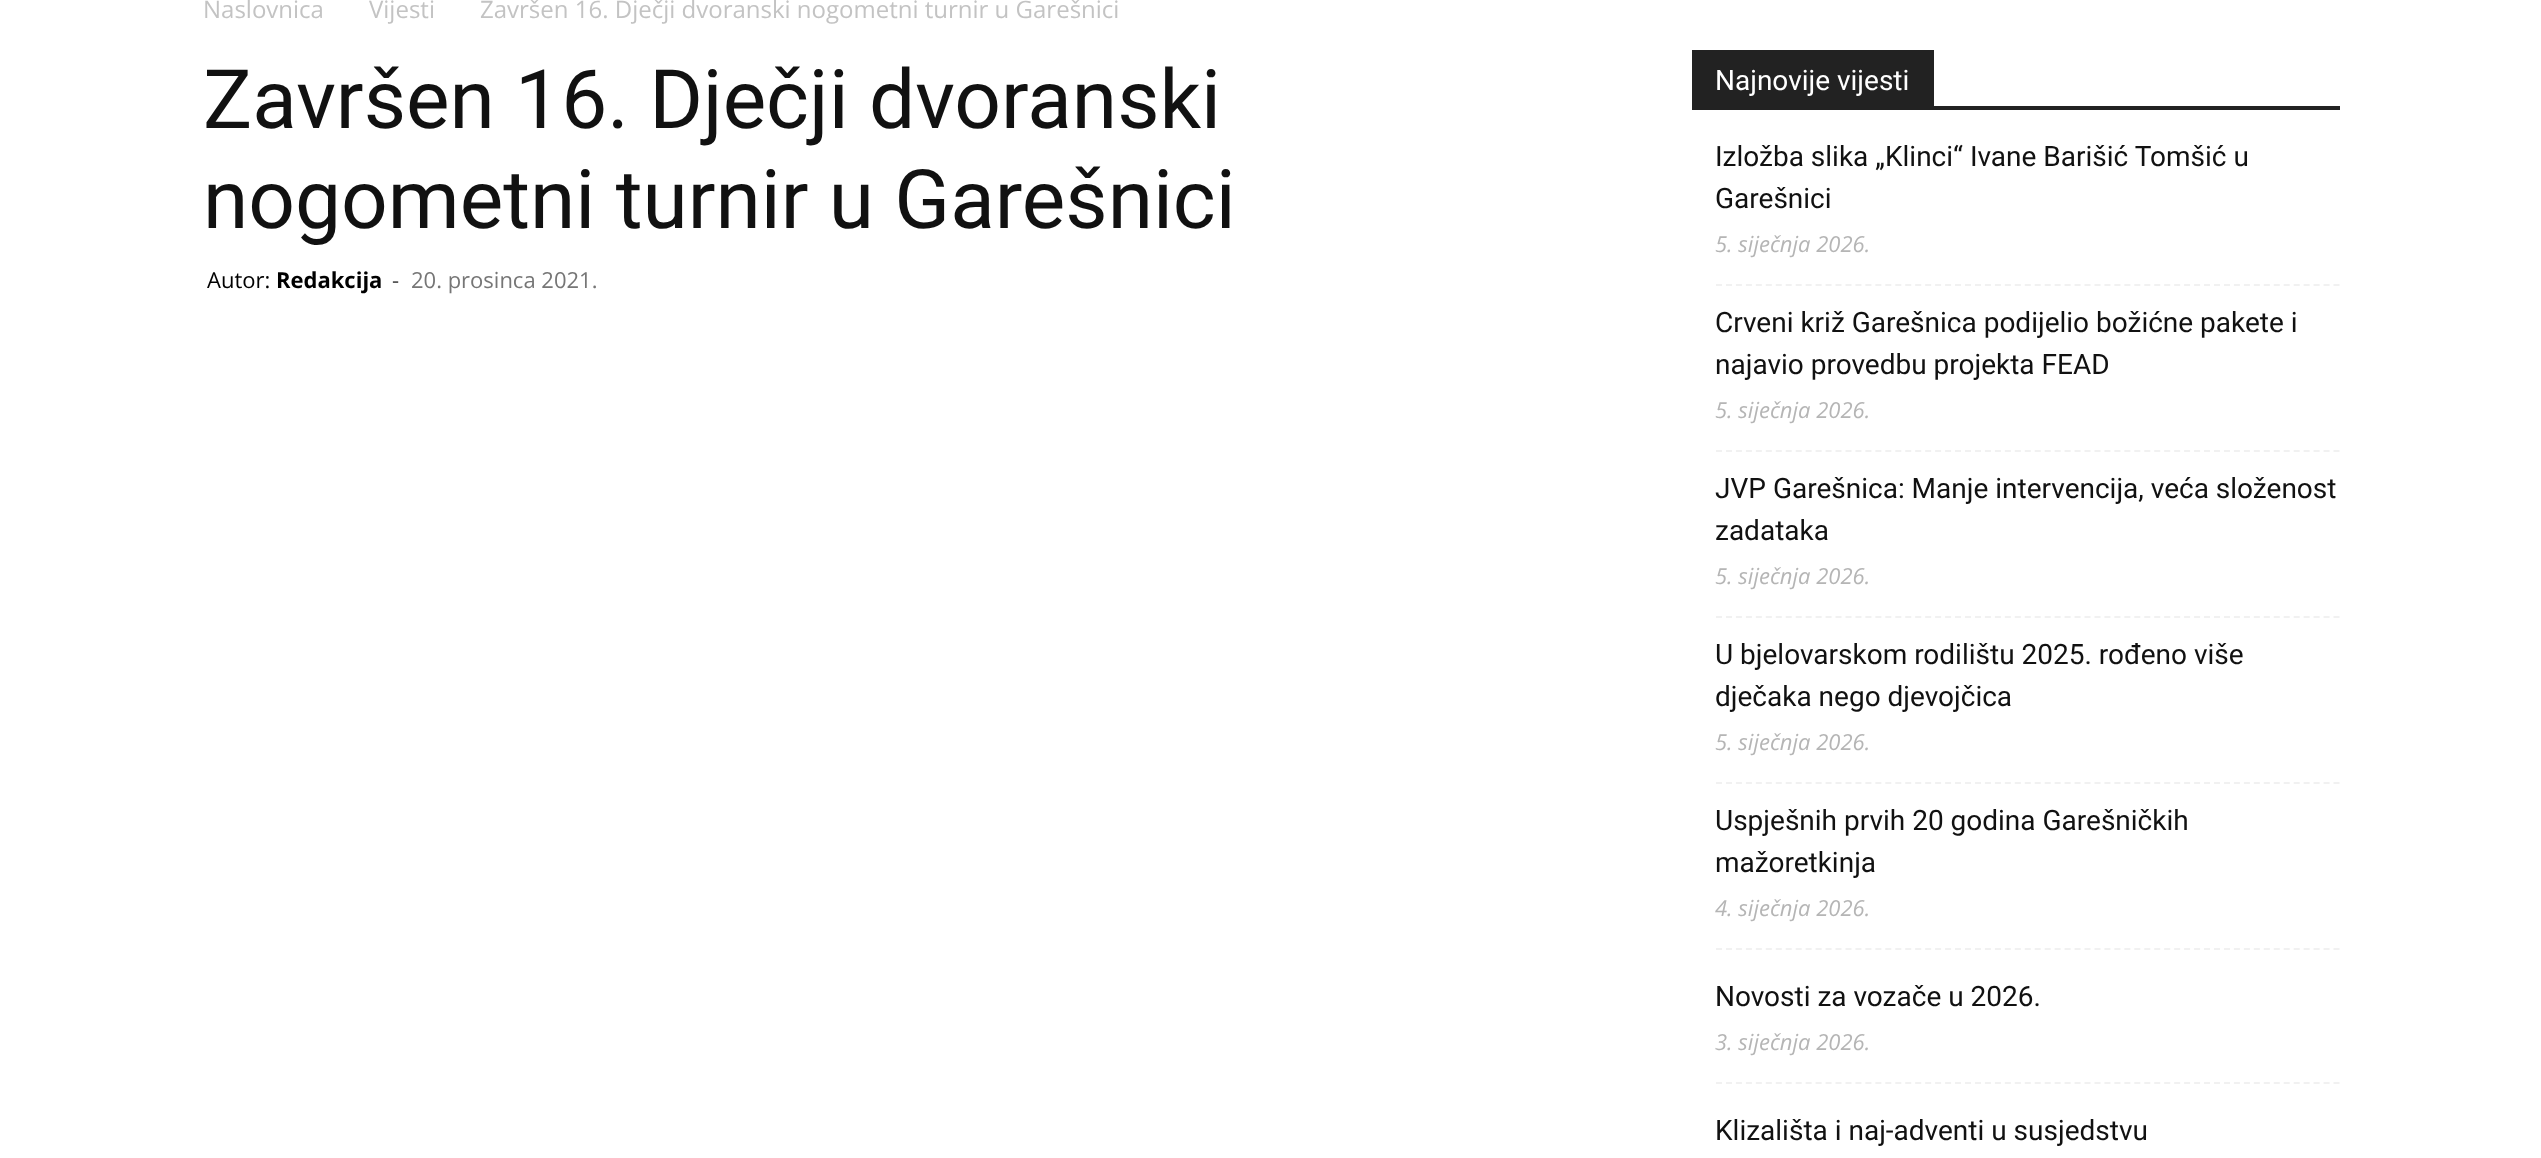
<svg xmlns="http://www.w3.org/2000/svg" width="2541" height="1158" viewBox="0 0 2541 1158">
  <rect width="100%" height="100%" fill="#ffffff"/>
  <text x="203" y="18" font-family="Open Sans" font-size="24" fill="#c3c3c3">Naslovnica</text>
  <text x="369" y="18" font-family="Open Sans" font-size="24" fill="#c3c3c3">Vijesti</text>
  <text x="480" y="18" font-family="Open Sans" font-size="24" fill="#c3c3c3">Završen 16. Dječji dvoranski nogometni turnir u Garešnici</text>
  <text x="203" y="128" font-family="Roboto" font-size="82" fill="#111111">Završen 16. Dječji dvoranski</text>
  <text x="203" y="228" font-family="Roboto" font-size="82" fill="#111111">nogometni turnir u Garešnici</text>
  <text x="207" y="288" font-family="Open Sans" font-size="22" fill="#000000">Autor:</text>
  <text x="276" y="288" font-family="Open Sans" font-size="22" font-weight="bold" fill="#000000">Redakcija</text>
  <text x="392" y="288" font-family="Open Sans" font-size="22" fill="#444444">-</text>
  <text x="411" y="288" font-family="Open Sans" font-size="22" fill="#767676">20. prosinca 2021.</text>
  <rect x="1692" y="106" width="648" height="4" fill="#222222"/>
  <rect x="1692" y="50" width="242" height="56" fill="#222222"/>
  <text x="1715" y="90" font-family="Roboto" font-size="28" fill="#ffffff">Najnovije vijesti</text>
  <path d="M1716 285H2340" fill="none" stroke="#f1f1f1" stroke-width="2" stroke-dasharray="6 3.96"/>
  <text x="1715" y="166" font-family="Roboto" font-size="28" fill="#111111">Izložba slika „Klinci“ Ivane Barišić Tomšić u</text>
  <text x="1715" y="208" font-family="Roboto" font-size="28" fill="#111111">Garešnici</text>
  <text x="1715" y="252" font-family="Open Sans" font-size="22" font-style="italic" fill="#b5b5b5">5. siječnja 2026.</text>
  <path d="M1716 451H2340" fill="none" stroke="#f1f1f1" stroke-width="2" stroke-dasharray="6 3.96"/>
  <text x="1715" y="332" font-family="Roboto" font-size="28" fill="#111111">Crveni križ Garešnica podijelio božićne pakete i</text>
  <text x="1715" y="374" font-family="Roboto" font-size="28" fill="#111111">najavio provedbu projekta FEAD</text>
  <text x="1715" y="418" font-family="Open Sans" font-size="22" font-style="italic" fill="#b5b5b5">5. siječnja 2026.</text>
  <path d="M1716 617H2340" fill="none" stroke="#f1f1f1" stroke-width="2" stroke-dasharray="6 3.96"/>
  <text x="1715" y="498" font-family="Roboto" font-size="28" fill="#111111">JVP Garešnica: Manje intervencija, veća složenost</text>
  <text x="1715" y="540" font-family="Roboto" font-size="28" fill="#111111">zadataka</text>
  <text x="1715" y="584" font-family="Open Sans" font-size="22" font-style="italic" fill="#b5b5b5">5. siječnja 2026.</text>
  <path d="M1716 783H2340" fill="none" stroke="#f1f1f1" stroke-width="2" stroke-dasharray="6 3.96"/>
  <text x="1715" y="664" font-family="Roboto" font-size="28" fill="#111111">U bjelovarskom rodilištu 2025. rođeno više</text>
  <text x="1715" y="706" font-family="Roboto" font-size="28" fill="#111111">dječaka nego djevojčica</text>
  <text x="1715" y="750" font-family="Open Sans" font-size="22" font-style="italic" fill="#b5b5b5">5. siječnja 2026.</text>
  <path d="M1716 949H2340" fill="none" stroke="#f1f1f1" stroke-width="2" stroke-dasharray="6 3.96"/>
  <text x="1715" y="830" font-family="Roboto" font-size="28" fill="#111111">Uspješnih prvih 20 godina Garešničkih</text>
  <text x="1715" y="872" font-family="Roboto" font-size="28" fill="#111111">mažoretkinja</text>
  <text x="1715" y="916" font-family="Open Sans" font-size="22" font-style="italic" fill="#b5b5b5">4. siječnja 2026.</text>
  <path d="M1716 1083H2340" fill="none" stroke="#f1f1f1" stroke-width="2" stroke-dasharray="6 3.96"/>
  <text x="1715" y="1006" font-family="Roboto" font-size="28" fill="#111111">Novosti za vozače u 2026.</text>
  <text x="1715" y="1050" font-family="Open Sans" font-size="22" font-style="italic" fill="#b5b5b5">3. siječnja 2026.</text>
  <text x="1715" y="1140" font-family="Roboto" font-size="28" fill="#111111">Klizališta i naj-adventi u susjedstvu</text>
</svg>
